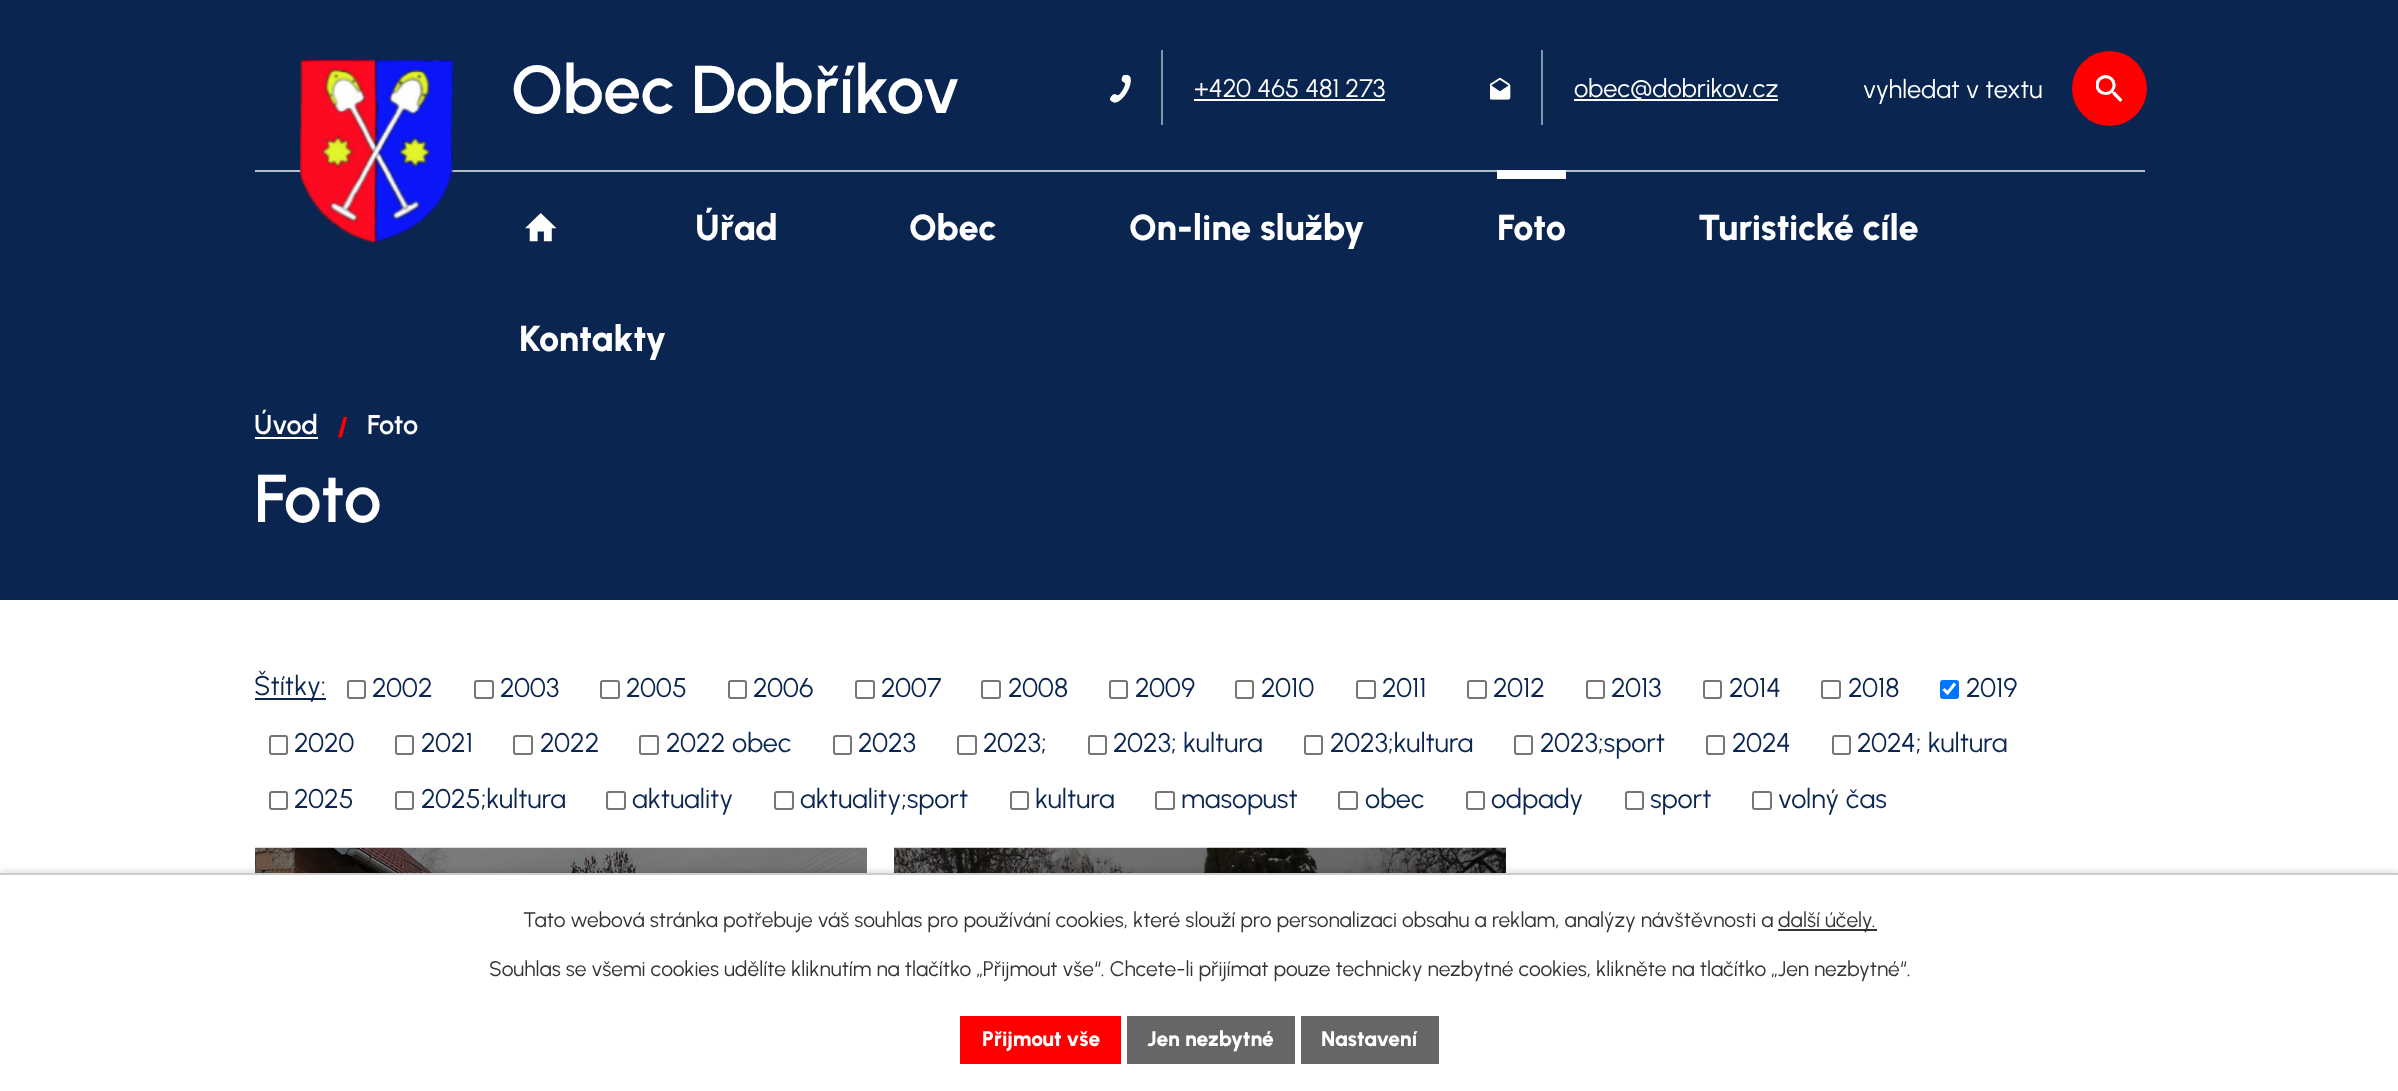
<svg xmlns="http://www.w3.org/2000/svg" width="2398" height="1091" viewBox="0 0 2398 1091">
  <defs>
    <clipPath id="clip1"><rect x="1863" y="74" width="183" height="30"/></clipPath>
    <filter id="blur1" x="-50%" y="-200%" width="200%" height="500%"><feGaussianBlur stdDeviation="4"/></filter>
  </defs>
  <rect width="100%" height="100%" fill="#ffffff"/>
  <rect x="0" y="0" width="2398" height="600" fill="#0a2650"/>
  <rect x="255" y="170" width="1890" height="2" fill="#b6becb"/>
  <image x="300" y="60" width="153" height="183" href="img1.png"/>
  <text x="511" y="113" font-family="Urbanist" font-size="67.5" font-weight="600" fill="#ffffff">Obec Dobříkov</text>
  <image x="1110" y="75" width="21" height="28" href="img2.png"/>
  <rect x="1161" y="50" width="2" height="75" fill="#8593a8"/>
  <text x="1194" y="97" font-family="Urbanist" font-size="25.5" fill="#ffffff">+420 465 481 273</text>
  <rect x="1194" y="99" width="191" height="2" fill="#ffffff"/>
  <image x="1490" y="78" width="21" height="22" href="img3.png"/>
  <rect x="1541" y="50" width="2" height="75" fill="#8593a8"/>
  <rect x="1574" y="99" width="204" height="2" fill="#ffffff"/>
  <text x="1574" y="97" font-family="Urbanist" font-size="25.5" fill="#ffffff">obec@dobrikov.cz</text>
  <g clip-path="url(#clip1)">
    <text x="1863" y="98" font-family="Urbanist" font-size="25.5" fill="#ffffff">vyhledat v textu</text>
  </g>
  <circle cx="2109.5" cy="88.5" r="37.5" fill="#ff0000"/>
  <image x="2096" y="75" width="27" height="27" href="img4.png"/>
  <image x="525" y="213" width="32" height="29" href="img5.png"/>
  <text x="695" y="240" font-family="Urbanist" font-size="36" font-weight="800" fill="#ffffff">Úřad</text>
  <text x="909" y="240" font-family="Urbanist" font-size="36" font-weight="800" fill="#ffffff">Obec</text>
  <text x="1129" y="240" font-family="Urbanist" font-size="36" font-weight="800" fill="#ffffff">On-line služby</text>
  <rect x="1497" y="170" width="69" height="9" fill="#ffffff"/>
  <text x="1497" y="240" font-family="Urbanist" font-size="36" font-weight="800" fill="#ffffff">Foto</text>
  <text x="1698" y="240" font-family="Urbanist" font-size="36" font-weight="800" fill="#ffffff">Turistické cíle</text>
  <text x="519" y="351" font-family="Urbanist" font-size="36" font-weight="800" fill="#ffffff">Kontakty</text>
  <text x="254" y="434" font-family="Urbanist" font-size="27" font-weight="600" fill="#ffffff">Úvod</text>
  <rect x="255" y="437" width="63" height="2" fill="#ffffff"/>
  <text x="337" y="436" font-family="Urbanist" font-size="27" font-weight="800" fill="#ff0000">/</text>
  <text x="367" y="434" font-family="Urbanist" font-size="27" font-weight="600" fill="#ffffff">Foto</text>
  <text x="254" y="522" font-family="Urbanist" font-size="67.5" font-weight="600" fill="#ffffff">Foto</text>
  <rect x="255" y="698" width="71" height="2" fill="#0a2650"/>
  <text x="254" y="695" font-family="Urbanist" font-size="27" fill="#0a2650">Štítky:</text>
  <rect x="348" y="681" width="17" height="17" rx="2" fill="none" stroke="#767676" stroke-width="2"/>
  <text x="372" y="697" font-family="Urbanist" font-size="27" fill="#0a2650">2002</text>
  <rect x="475" y="681" width="18" height="17" rx="2" fill="none" stroke="#767676" stroke-width="2"/>
  <text x="500" y="697" font-family="Urbanist" font-size="27" fill="#0a2650">2003</text>
  <rect x="601" y="681" width="18" height="17" rx="2" fill="none" stroke="#767676" stroke-width="2"/>
  <text x="626" y="697" font-family="Urbanist" font-size="27" fill="#0a2650">2005</text>
  <rect x="729" y="681" width="17" height="17" rx="2" fill="none" stroke="#767676" stroke-width="2"/>
  <text x="753" y="697" font-family="Urbanist" font-size="27" fill="#0a2650">2006</text>
  <rect x="856" y="681" width="18" height="17" rx="2" fill="none" stroke="#767676" stroke-width="2"/>
  <text x="881" y="697" font-family="Urbanist" font-size="27" fill="#0a2650">2007</text>
  <rect x="982" y="681" width="18" height="17" rx="2" fill="none" stroke="#767676" stroke-width="2"/>
  <text x="1008" y="697" font-family="Urbanist" font-size="27" fill="#0a2650">2008</text>
  <rect x="1110" y="681" width="17" height="17" rx="2" fill="none" stroke="#767676" stroke-width="2"/>
  <text x="1135" y="697" font-family="Urbanist" font-size="27" fill="#0a2650">2009</text>
  <rect x="1236" y="681" width="17" height="17" rx="2" fill="none" stroke="#767676" stroke-width="2"/>
  <text x="1261" y="697" font-family="Urbanist" font-size="27" fill="#0a2650">2010</text>
  <rect x="1357" y="681" width="18" height="17" rx="2" fill="none" stroke="#767676" stroke-width="2"/>
  <text x="1382" y="697" font-family="Urbanist" font-size="27" fill="#0a2650">2011</text>
  <rect x="1468" y="681" width="18" height="17" rx="2" fill="none" stroke="#767676" stroke-width="2"/>
  <text x="1493" y="697" font-family="Urbanist" font-size="27" fill="#0a2650">2012</text>
  <rect x="1587" y="681" width="17" height="17" rx="2" fill="none" stroke="#767676" stroke-width="2"/>
  <text x="1611" y="697" font-family="Urbanist" font-size="27" fill="#0a2650">2013</text>
  <rect x="1704" y="681" width="17" height="17" rx="2" fill="none" stroke="#767676" stroke-width="2"/>
  <text x="1729" y="697" font-family="Urbanist" font-size="27" fill="#0a2650">2014</text>
  <rect x="1822" y="681" width="18" height="17" rx="2" fill="none" stroke="#767676" stroke-width="2"/>
  <text x="1848" y="697" font-family="Urbanist" font-size="27" fill="#0a2650">2018</text>
  <rect x="1940" y="680" width="19" height="19" rx="3" fill="#0075ff"/>
  <path d="M1943.5 689L1947.5 693L1955 683.5" fill="none" stroke="#ffffff" stroke-width="3.1"/>
  <text x="1966" y="697" font-family="Urbanist" font-size="27" fill="#0a2650">2019</text>
  <rect x="270" y="736" width="17" height="18" rx="2" fill="none" stroke="#767676" stroke-width="2"/>
  <text x="294" y="752" font-family="Urbanist" font-size="27" fill="#0a2650">2020</text>
  <rect x="396" y="736" width="17" height="18" rx="2" fill="none" stroke="#767676" stroke-width="2"/>
  <text x="421" y="752" font-family="Urbanist" font-size="27" fill="#0a2650">2021</text>
  <rect x="514" y="736" width="18" height="18" rx="2" fill="none" stroke="#767676" stroke-width="2"/>
  <text x="540" y="752" font-family="Urbanist" font-size="27" fill="#0a2650">2022</text>
  <rect x="640" y="736" width="18" height="18" rx="2" fill="none" stroke="#767676" stroke-width="2"/>
  <text x="666" y="752" font-family="Urbanist" font-size="27" fill="#0a2650">2022 obec</text>
  <rect x="834" y="736" width="17" height="18" rx="2" fill="none" stroke="#767676" stroke-width="2"/>
  <text x="858" y="752" font-family="Urbanist" font-size="27" fill="#0a2650">2023</text>
  <rect x="958" y="736" width="18" height="18" rx="2" fill="none" stroke="#767676" stroke-width="2"/>
  <text x="983" y="752" font-family="Urbanist" font-size="27" fill="#0a2650">2023;</text>
  <rect x="1089" y="736" width="17" height="18" rx="2" fill="none" stroke="#767676" stroke-width="2"/>
  <text x="1113" y="752" font-family="Urbanist" font-size="27" fill="#0a2650">2023; kultura</text>
  <rect x="1305" y="736" width="17" height="18" rx="2" fill="none" stroke="#767676" stroke-width="2"/>
  <text x="1330" y="752" font-family="Urbanist" font-size="27" fill="#0a2650">2023;kultura</text>
  <rect x="1515" y="736" width="17" height="18" rx="2" fill="none" stroke="#767676" stroke-width="2"/>
  <text x="1540" y="752" font-family="Urbanist" font-size="27" fill="#0a2650">2023;sport</text>
  <rect x="1707" y="736" width="17" height="18" rx="2" fill="none" stroke="#767676" stroke-width="2"/>
  <text x="1732" y="752" font-family="Urbanist" font-size="27" fill="#0a2650">2024</text>
  <rect x="1833" y="736" width="17" height="18" rx="2" fill="none" stroke="#767676" stroke-width="2"/>
  <text x="1857" y="752" font-family="Urbanist" font-size="27" fill="#0a2650">2024; kultura</text>
  <rect x="270" y="792" width="17" height="17" rx="2" fill="none" stroke="#767676" stroke-width="2"/>
  <text x="294" y="808" font-family="Urbanist" font-size="27" fill="#0a2650">2025</text>
  <rect x="396" y="792" width="17" height="17" rx="2" fill="none" stroke="#767676" stroke-width="2"/>
  <text x="421" y="808" font-family="Urbanist" font-size="27" fill="#0a2650">2025;kultura</text>
  <rect x="607" y="792" width="18" height="17" rx="2" fill="none" stroke="#767676" stroke-width="2"/>
  <text x="632" y="808" font-family="Urbanist" font-size="27" fill="#0a2650">aktuality</text>
  <rect x="775" y="792" width="18" height="17" rx="2" fill="none" stroke="#767676" stroke-width="2"/>
  <text x="800" y="808" font-family="Urbanist" font-size="27" fill="#0a2650">aktuality;sport</text>
  <rect x="1011" y="792" width="17" height="17" rx="2" fill="none" stroke="#767676" stroke-width="2"/>
  <text x="1035" y="808" font-family="Urbanist" font-size="27" fill="#0a2650">kultura</text>
  <rect x="1156" y="792" width="18" height="17" rx="2" fill="none" stroke="#767676" stroke-width="2"/>
  <text x="1181" y="808" font-family="Urbanist" font-size="27" fill="#0a2650">masopust</text>
  <rect x="1339" y="792" width="18" height="17" rx="2" fill="none" stroke="#767676" stroke-width="2"/>
  <text x="1365" y="808" font-family="Urbanist" font-size="27" fill="#0a2650">obec</text>
  <rect x="1467" y="792" width="17" height="17" rx="2" fill="none" stroke="#767676" stroke-width="2"/>
  <text x="1491" y="808" font-family="Urbanist" font-size="27" fill="#0a2650">odpady</text>
  <rect x="1626" y="792" width="17" height="17" rx="2" fill="none" stroke="#767676" stroke-width="2"/>
  <text x="1650" y="808" font-family="Urbanist" font-size="27" fill="#0a2650">sport</text>
  <rect x="1753" y="792" width="18" height="17" rx="2" fill="none" stroke="#767676" stroke-width="2"/>
  <text x="1778" y="808" font-family="Urbanist" font-size="27" fill="#0a2650">volný čas</text>
  <image x="255" y="847" width="612" height="26" href="img6.png"/>
  <image x="894" y="847" width="612" height="26" href="img7.png"/>
  <rect x="0" y="873" width="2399" height="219" fill="#000000" fill-opacity="0.2" filter="url(#blur1)"/>
  <rect x="0" y="875" width="2398" height="216" fill="#ffffff"/>
  <rect x="0" y="873" width="2398" height="2" fill="#cccccc"/>
  <text x="523" y="927" font-family="Urbanist" font-size="21" fill="#333333">Tato webová stránka potřebuje váš souhlas pro používání cookies, které slouží pro personalizaci obsahu a reklam, analýzy návštěvnosti a</text>
  <rect x="1778" y="929" width="99" height="2" fill="#333333"/>
  <text x="1778" y="927" font-family="Urbanist" font-size="21" fill="#333333">další účely.</text>
  <text x="489" y="976" font-family="Urbanist" font-size="21" fill="#333333">Souhlas se všemi cookies udělíte kliknutím na tlačítko „Přijmout vše“. Chcete-li přijímat pouze technicky nezbytné cookies, klikněte na tlačítko „Jen nezbytné“.</text>
  <rect x="960" y="1016" width="161" height="48" fill="#ff0000"/>
  <text x="982" y="1046" font-family="Urbanist" font-size="21" font-weight="800" fill="#ffffff">Přijmout vše</text>
  <rect x="1127" y="1016" width="168" height="48" fill="#666666"/>
  <text x="1147" y="1046" font-family="Urbanist" font-size="21" font-weight="800" fill="#ffffff">Jen nezbytné</text>
  <rect x="1301" y="1016" width="138" height="48" fill="#666666"/>
  <text x="1321" y="1046" font-family="Urbanist" font-size="21" font-weight="800" fill="#ffffff">Nastavení</text>
</svg>
